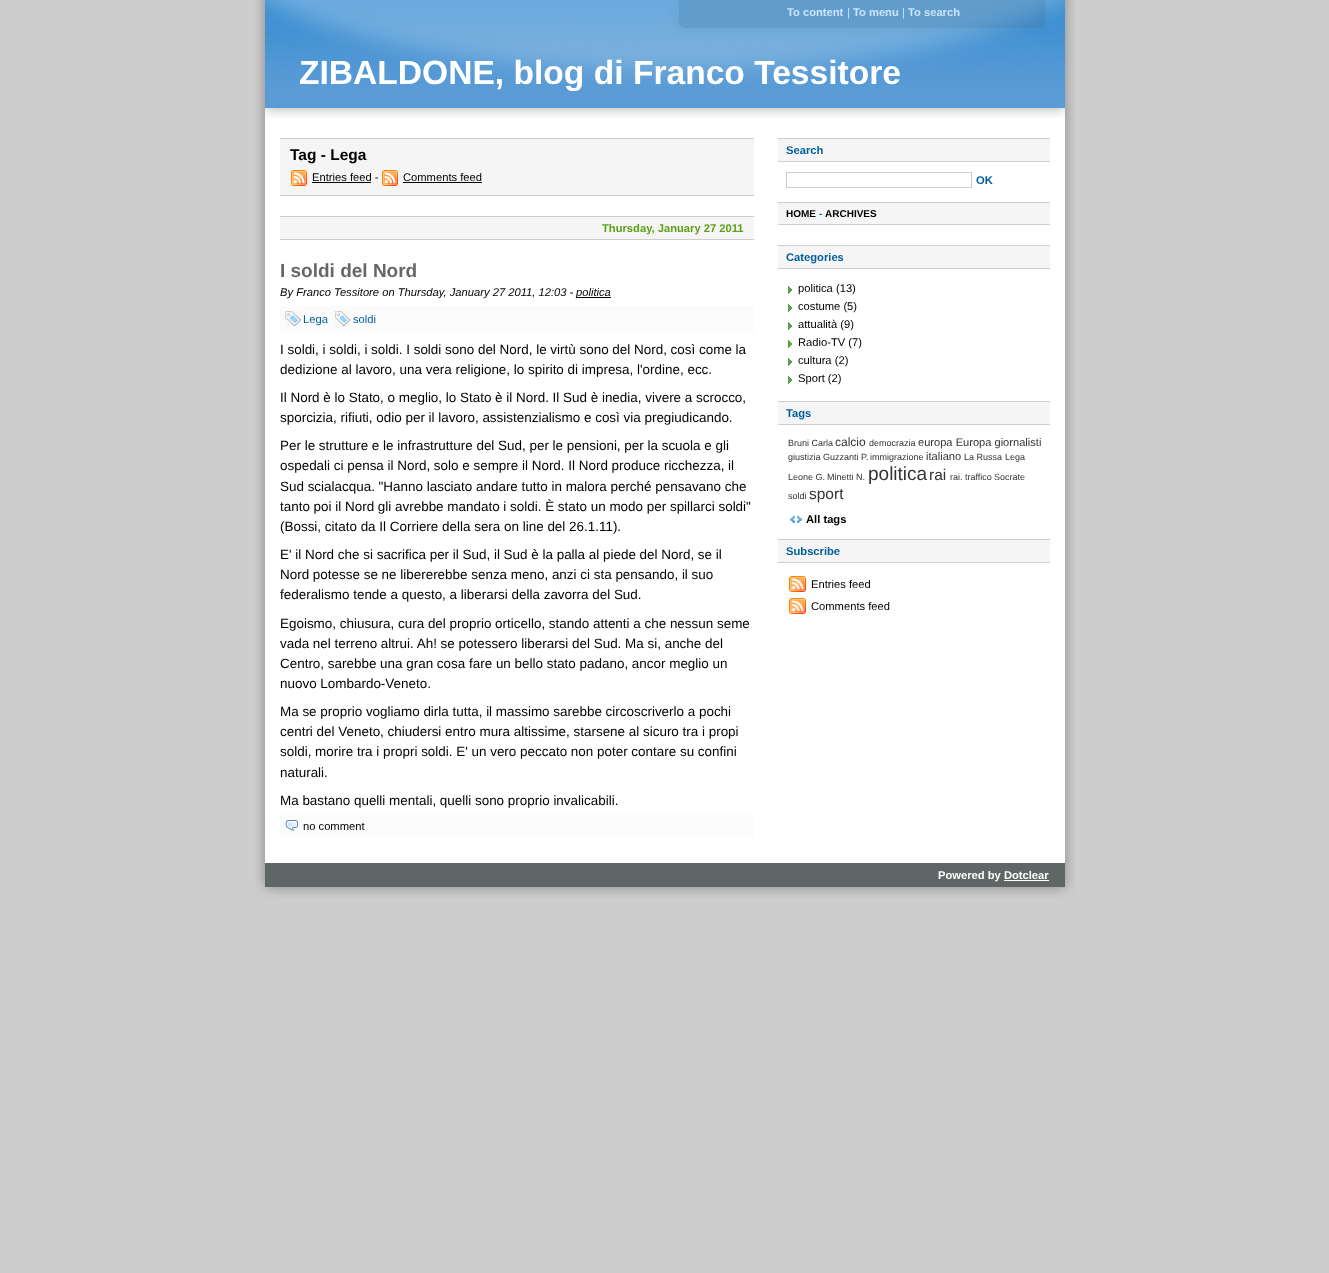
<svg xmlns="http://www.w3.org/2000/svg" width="1329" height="1273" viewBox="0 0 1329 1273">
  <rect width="100%" height="100%" fill="#cdcdcd"/>
  <image x="255" y="0" width="820" height="879" href="img1.png"/>
  <image x="265" y="0" width="800" height="118" href="img2.png"/>
  <text x="787" y="16" font-family="Liberation Sans" font-size="11.2" font-weight="bold" fill="#cae4fc">To content</text>
  <text x="847" y="16" font-family="Liberation Sans" font-size="11.2" fill="#cae4fc">|</text>
  <text x="853" y="16" font-family="Liberation Sans" font-size="11.2" font-weight="bold" fill="#cae4fc">To menu</text>
  <text x="902" y="16" font-family="Liberation Sans" font-size="11.2" fill="#cae4fc">|</text>
  <text x="908" y="16" font-family="Liberation Sans" font-size="11.2" font-weight="bold" fill="#cae4fc">To search</text>
  <text x="299" y="84" font-family="Liberation Sans" font-size="33.6" font-weight="bold" fill="#ffffff">ZIBALDONE, blog di Franco Tessitore</text>
  <rect x="280" y="139" width="474" height="56" fill="#f5f5f5"/>
  <rect x="280" y="138" width="474" height="1" fill="#cdcdcd"/>
  <rect x="280" y="195" width="474" height="1" fill="#cdcdcd"/>
  <text x="290" y="160" font-family="Liberation Sans" font-size="15.5" font-weight="bold" fill="#000000">Tag - Lega</text>
  <image x="291" y="170" width="16" height="16" href="img3.png"/>
  <text x="312" y="181" font-family="Liberation Sans" font-size="11.2" fill="#000000">Entries feed -</text>
  <rect x="312" y="182" width="59" height="1" fill="#000000"/>
  <image x="382" y="170" width="16" height="16" href="img3.png"/>
  <text x="403" y="181" font-family="Liberation Sans" font-size="11.2" fill="#000000">Comments feed</text>
  <rect x="403" y="182" width="79" height="1" fill="#000000"/>
  <rect x="280" y="217" width="474" height="22" fill="#f5f5f5"/>
  <rect x="280" y="216" width="474" height="1" fill="#cdcdcd"/>
  <rect x="280" y="239" width="474" height="1" fill="#cdcdcd"/>
  <text x="602" y="232" font-family="Liberation Sans" font-size="11.2" font-weight="bold" fill="#5e9e14">Thursday, January 27 2011</text>
  <text x="280" y="277" font-family="Liberation Sans" font-size="19" font-weight="bold" fill="#666666">I soldi del Nord</text>
  <text x="280" y="296" font-family="Liberation Sans" font-size="11.2" font-style="italic" fill="#000000">By Franco Tessitore on Thursday, January 27 2011, 12:03 -</text>
  <rect x="576" y="297" width="35" height="1" fill="#000000"/>
  <text x="576" y="296" font-family="Liberation Sans" font-size="11.2" font-style="italic" fill="#000000">politica</text>
  <rect x="280" y="306" width="474" height="26" fill="#fbfbfb"/>
  <image x="285" y="311" width="16" height="16" href="img4.png"/>
  <text x="303" y="323" font-family="Liberation Sans" font-size="11.2" fill="#005d99">Lega</text>
  <image x="335" y="311" width="15" height="16" href="img5.png"/>
  <text x="353" y="323" font-family="Liberation Sans" font-size="11.2" fill="#005d99">soldi</text>
  <text x="280" y="354" font-family="Liberation Sans" font-size="13.45" fill="#000000">I soldi, i soldi, i soldi. I soldi sono del Nord, le virtù sono del Nord, così come la</text>
  <text x="280" y="374" font-family="Liberation Sans" font-size="13.45" fill="#000000">dedizione al lavoro, una vera religione, lo spirito di impresa, l'ordine, ecc.</text>
  <text x="280" y="402" font-family="Liberation Sans" font-size="13.45" fill="#000000">Il Nord è lo Stato, o meglio, lo Stato è il Nord. Il Sud è inedia, vivere a scrocco,</text>
  <text x="280" y="422" font-family="Liberation Sans" font-size="13.45" fill="#000000">sporcizia, rifiuti, odio per il lavoro, assistenzialismo e così via pregiudicando.</text>
  <text x="280" y="450" font-family="Liberation Sans" font-size="13.45" fill="#000000">Per le strutture e le infrastrutture del Sud, per le pensioni, per la scuola e gli</text>
  <text x="280" y="470" font-family="Liberation Sans" font-size="13.45" fill="#000000">ospedali ci pensa il Nord, solo e sempre il Nord. Il Nord produce ricchezza, il</text>
  <text x="280" y="491" font-family="Liberation Sans" font-size="13.45" fill="#000000">Sud scialacqua. "Hanno lasciato andare tutto in malora perché pensavano che</text>
  <text x="280" y="511" font-family="Liberation Sans" font-size="13.45" fill="#000000">tanto poi il Nord gli avrebbe mandato i soldi. È stato un modo per spillarci soldi"</text>
  <text x="280" y="531" font-family="Liberation Sans" font-size="13.45" fill="#000000">(Bossi, citato da Il Corriere della sera on line del 26.1.11).</text>
  <text x="280" y="559" font-family="Liberation Sans" font-size="13.45" fill="#000000">E' il Nord che si sacrifica per il Sud, il Sud è la palla al piede del Nord, se il</text>
  <text x="280" y="579" font-family="Liberation Sans" font-size="13.45" fill="#000000">Nord potesse se ne libererebbe senza meno, anzi ci sta pensando, il suo</text>
  <text x="280" y="599" font-family="Liberation Sans" font-size="13.45" fill="#000000">federalismo tende a questo, a liberarsi della zavorra del Sud.</text>
  <text x="280" y="628" font-family="Liberation Sans" font-size="13.45" fill="#000000">Egoismo, chiusura, cura del proprio orticello, stando attenti a che nessun seme</text>
  <text x="280" y="648" font-family="Liberation Sans" font-size="13.45" fill="#000000">vada nel terreno altrui. Ah! se potessero liberarsi del Sud. Ma si, anche del</text>
  <text x="280" y="668" font-family="Liberation Sans" font-size="13.45" fill="#000000">Centro, sarebbe una gran cosa fare un bello stato padano, ancor meglio un</text>
  <text x="280" y="688" font-family="Liberation Sans" font-size="13.45" fill="#000000">nuovo Lombardo-Veneto.</text>
  <text x="280" y="716" font-family="Liberation Sans" font-size="13.45" fill="#000000">Ma se proprio vogliamo dirla tutta, il massimo sarebbe circoscriverlo a pochi</text>
  <text x="280" y="736" font-family="Liberation Sans" font-size="13.45" fill="#000000">centri del Veneto, chiudersi entro mura altissime, starsene al sicuro tra i propi</text>
  <text x="280" y="756" font-family="Liberation Sans" font-size="13.45" fill="#000000">soldi, morire tra i propri soldi. E' un vero peccato non poter contare su confini</text>
  <text x="280" y="777" font-family="Liberation Sans" font-size="13.45" fill="#000000">naturali.</text>
  <text x="280" y="805" font-family="Liberation Sans" font-size="13.45" fill="#000000">Ma bastano quelli mentali, quelli sono proprio invalicabili.</text>
  <rect x="280" y="815" width="474" height="22" fill="#fbfbfb"/>
  <image x="285" y="820" width="14" height="11" href="img6.png"/>
  <text x="303" y="830" font-family="Liberation Sans" font-size="11.2" fill="#000000">no comment</text>
  <rect x="778" y="139" width="272" height="22" fill="#f5f5f5"/>
  <rect x="778" y="138" width="272" height="1" fill="#cdcdcd"/>
  <rect x="778" y="161" width="272" height="1" fill="#cdcdcd"/>
  <text x="786" y="154" font-family="Liberation Sans" font-size="11.2" font-weight="bold" fill="#005d99">Search</text>
  <rect x="786.5" y="172.5" width="185" height="15" fill="none" stroke="#cdcdcd"/>
  <text x="976" y="184" font-family="Liberation Sans" font-size="11.2" font-weight="bold" fill="#005d99">OK</text>
  <rect x="778" y="203" width="272" height="21" fill="#f5f5f5"/>
  <rect x="778" y="202" width="272" height="1" fill="#cdcdcd"/>
  <rect x="778" y="224" width="272" height="1" fill="#cdcdcd"/>
  <text x="786" y="217" font-family="Liberation Sans" font-size="10" font-weight="bold" fill="#000000">HOME</text>
  <text x="819" y="217" font-family="Liberation Sans" font-size="10" font-weight="bold" fill="#005d99">-</text>
  <text x="825" y="217" font-family="Liberation Sans" font-size="10" font-weight="bold" fill="#000000">ARCHIVES</text>
  <rect x="778" y="246" width="272" height="22" fill="#f5f5f5"/>
  <rect x="778" y="245" width="272" height="1" fill="#cdcdcd"/>
  <rect x="778" y="268" width="272" height="1" fill="#cdcdcd"/>
  <text x="786" y="261" font-family="Liberation Sans" font-size="11.2" font-weight="bold" fill="#005d99">Categories</text>
  <image x="788" y="286" width="4" height="8" href="img7.png"/>
  <text x="798" y="292" font-family="Liberation Sans" font-size="11.2" fill="#000000">politica (13)</text>
  <image x="788" y="304" width="4" height="8" href="img7.png"/>
  <text x="798" y="310" font-family="Liberation Sans" font-size="11.2" fill="#000000">costume (5)</text>
  <image x="788" y="322" width="4" height="8" href="img7.png"/>
  <text x="798" y="328" font-family="Liberation Sans" font-size="11.2" fill="#000000">attualità (9)</text>
  <image x="788" y="340" width="4" height="8" href="img7.png"/>
  <text x="798" y="346" font-family="Liberation Sans" font-size="11.2" fill="#000000">Radio-TV (7)</text>
  <image x="788" y="358" width="4" height="8" href="img7.png"/>
  <text x="798" y="364" font-family="Liberation Sans" font-size="11.2" fill="#000000">cultura (2)</text>
  <image x="788" y="376" width="4" height="8" href="img7.png"/>
  <text x="798" y="382" font-family="Liberation Sans" font-size="11.2" fill="#000000">Sport (2)</text>
  <rect x="778" y="402" width="272" height="22" fill="#f5f5f5"/>
  <rect x="778" y="401" width="272" height="1" fill="#cdcdcd"/>
  <rect x="778" y="424" width="272" height="1" fill="#cdcdcd"/>
  <text x="786" y="417" font-family="Liberation Sans" font-size="11.2" font-weight="bold" fill="#005d99">Tags</text>
  <text x="788" y="446" font-family="Liberation Sans" font-size="9" fill="#333333">Bruni Carla</text>
  <text x="835" y="446" font-family="Liberation Sans" font-size="12" fill="#333333">calcio</text>
  <text x="869" y="446" font-family="Liberation Sans" font-size="9" fill="#333333">democrazia</text>
  <text x="918" y="446" font-family="Liberation Sans" font-size="11.1" fill="#333333">europa Europa giornalisti</text>
  <text x="788" y="460" font-family="Liberation Sans" font-size="9" fill="#333333">giustizia</text>
  <text x="823" y="460" font-family="Liberation Sans" font-size="9" fill="#333333">Guzzanti P.</text>
  <text x="870" y="460" font-family="Liberation Sans" font-size="9" fill="#333333">immigrazione</text>
  <text x="926" y="460" font-family="Liberation Sans" font-size="11.1" fill="#333333">italiano</text>
  <text x="964" y="460" font-family="Liberation Sans" font-size="9" fill="#333333">La Russa</text>
  <text x="1005" y="460" font-family="Liberation Sans" font-size="9" fill="#333333">Lega</text>
  <text x="788" y="480" font-family="Liberation Sans" font-size="9" fill="#333333">Leone G.</text>
  <text x="827" y="480" font-family="Liberation Sans" font-size="9" fill="#333333">Minetti N.</text>
  <text x="868" y="480" font-family="Liberation Sans" font-size="19" fill="#333333">politica</text>
  <text x="929" y="480" font-family="Liberation Sans" font-size="15.5" fill="#333333">rai</text>
  <text x="950" y="480" font-family="Liberation Sans" font-size="9" fill="#333333">rai. traffico</text>
  <text x="994" y="480" font-family="Liberation Sans" font-size="9" fill="#333333">Socrate</text>
  <text x="788" y="499" font-family="Liberation Sans" font-size="9" fill="#333333">soldi</text>
  <text x="809" y="499" font-family="Liberation Sans" font-size="15.5" fill="#333333">sport</text>
  <image x="790" y="515" width="13" height="8" href="img8.png"/>
  <text x="806" y="523" font-family="Liberation Sans" font-size="11.2" font-weight="bold" fill="#000000">All tags</text>
  <rect x="778" y="540" width="272" height="22" fill="#f5f5f5"/>
  <rect x="778" y="539" width="272" height="1" fill="#cdcdcd"/>
  <rect x="778" y="562" width="272" height="1" fill="#cdcdcd"/>
  <text x="786" y="555" font-family="Liberation Sans" font-size="11.2" font-weight="bold" fill="#005d99">Subscribe</text>
  <image x="789" y="576" width="17" height="16" href="img9.png"/>
  <text x="811" y="588" font-family="Liberation Sans" font-size="11.2" fill="#000000">Entries feed</text>
  <image x="789" y="598" width="17" height="16" href="img9.png"/>
  <text x="811" y="610" font-family="Liberation Sans" font-size="11.2" fill="#000000">Comments feed</text>
  <image x="255" y="879" width="820" height="22" href="img10.png"/>
  <rect x="265" y="863" width="800" height="24" fill="#606666"/>
  <text x="938" y="879" font-family="Liberation Sans" font-size="11.2" font-weight="bold" fill="#ffffff">Powered by Dotclear</text>
  <rect x="1004" y="880" width="45" height="1" fill="#ffffff"/>
</svg>
